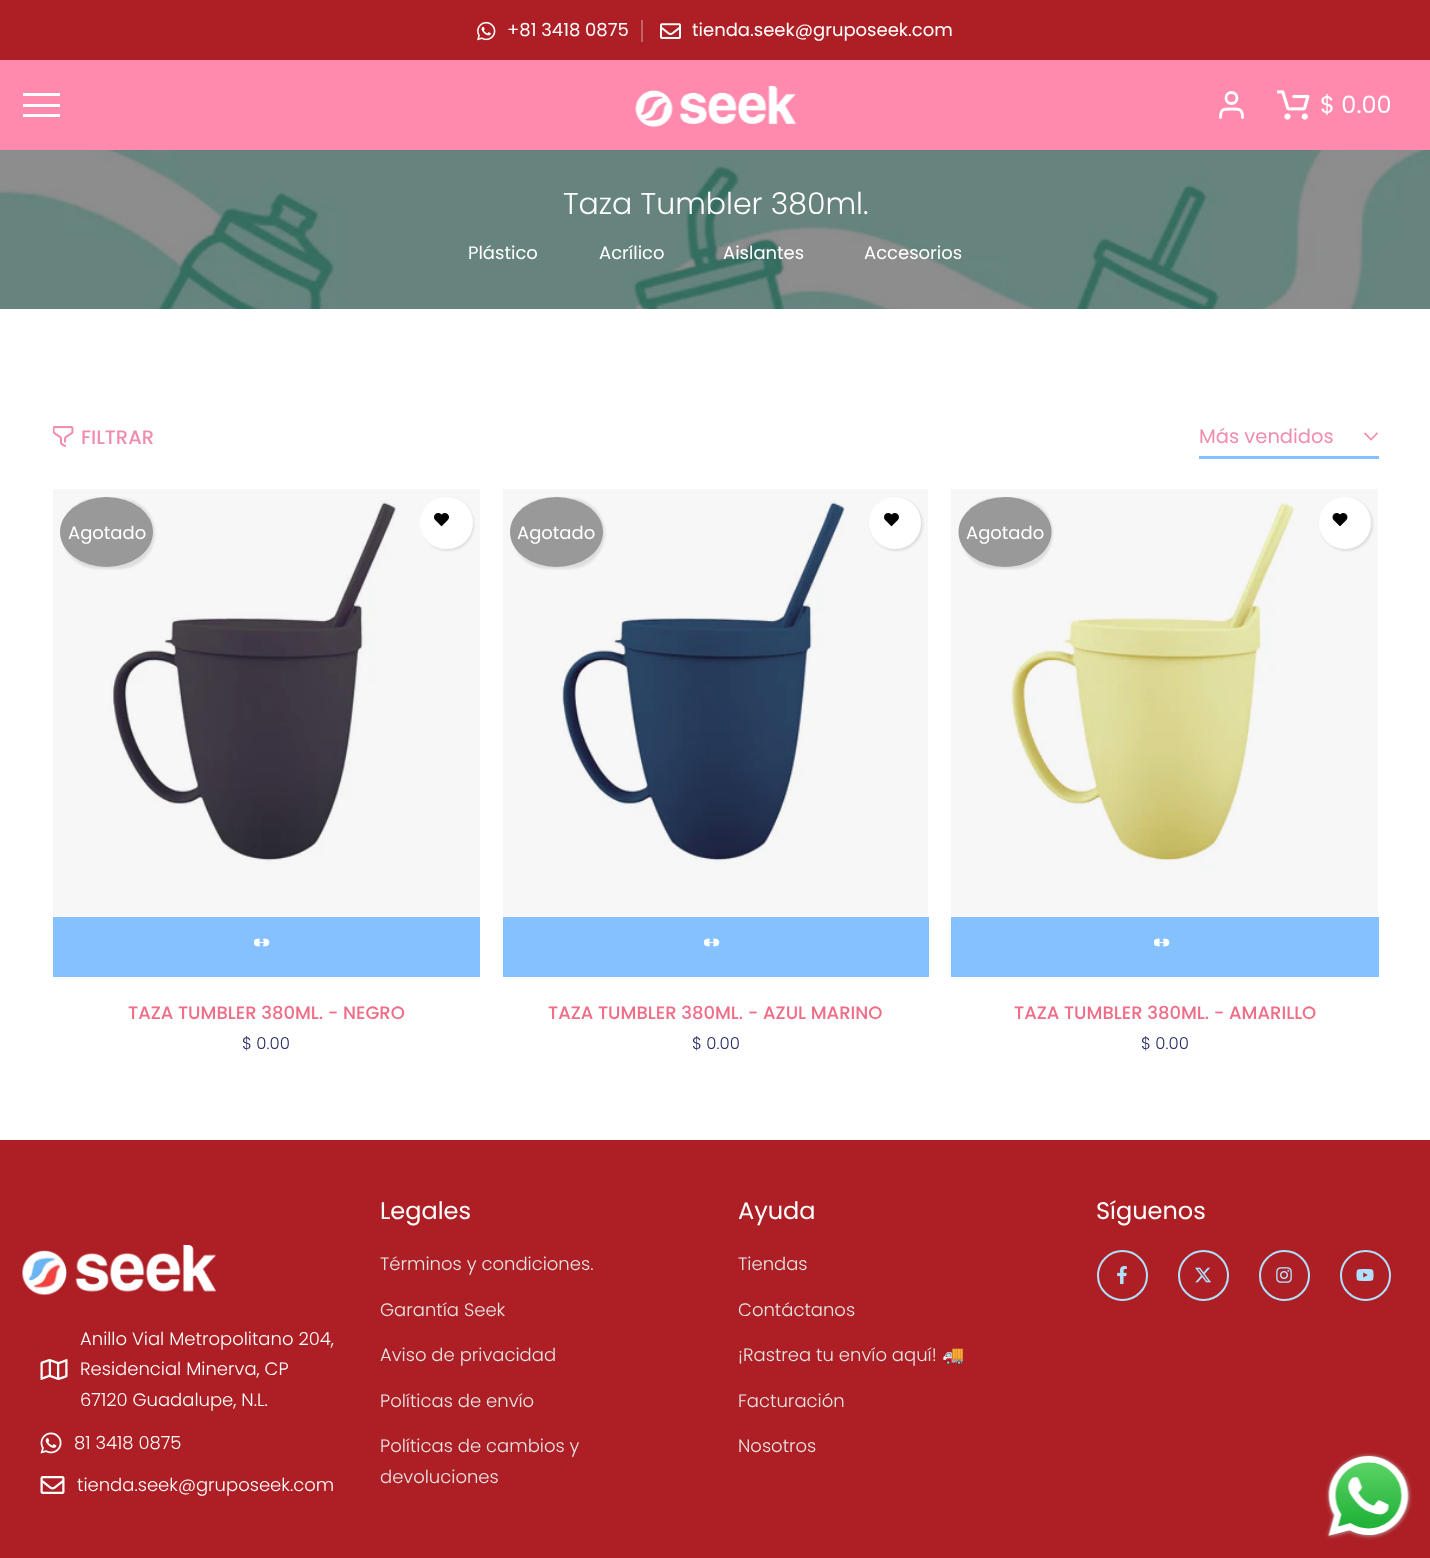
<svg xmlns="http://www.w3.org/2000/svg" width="1430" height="1558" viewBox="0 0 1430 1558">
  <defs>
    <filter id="blur1" x="-50%" y="-200%" width="200%" height="500%"><feGaussianBlur stdDeviation="1"/></filter>
  </defs>
  <rect width="100%" height="100%" fill="#ffffff"/>
  <rect x="0" y="0" width="1430" height="60" fill="#ae1f25"/>
  <image x="477" y="21" width="19" height="20" href="img1.png"/>
  <text x="507" y="36" font-family="Poppins" font-size="18" fill="#ffffff">+81 3418 0875</text>
  <rect x="641" y="20" width="2" height="22" fill="#c66266"/>
  <image x="660" y="23" width="21" height="16" href="img2.png"/>
  <text x="692" y="36" font-family="Poppins" font-size="18" fill="#ffffff">tienda.seek@gruposeek.com</text>
  <rect x="0" y="60" width="1430" height="90" fill="#ff8aae"/>
  <rect x="23" y="93" width="37" height="3" fill="#ffffff"/>
  <rect x="23" y="104" width="37" height="3" fill="#ffffff"/>
  <rect x="23" y="114" width="37" height="3" fill="#ffffff"/>
  <image x="635" y="85" width="162" height="42" href="img3.png"/>
  <circle cx="1231.5" cy="98" r="5.5" fill="none" stroke="#ffffff" stroke-width="2.8"/>
  <path d="M1242.5 117.5C1242.5 108.5 1239.5 109 1231.5 109C1223.5 109 1220.5 108.5 1220.5 117.5" fill="none" stroke="#ffffff" stroke-width="2.8" stroke-linecap="round" stroke-linejoin="round"/>
  <image x="1277" y="90" width="33" height="30" href="img4.png"/>
  <text x="1320" y="113" font-family="Poppins" font-size="24" fill="#ffffff">$ 0.00</text>
  <image x="0" y="150" width="1430" height="159" href="img5.png"/>
  <text x="563" y="214" font-family="Poppins" font-size="30" font-weight="300" fill="#ffffff">Taza Tumbler 380ml.</text>
  <text x="468" y="259" font-family="Poppins" font-size="18" fill="#ffffff">Plástico</text>
  <text x="599" y="259" font-family="Poppins" font-size="18" fill="#ffffff">Acrílico</text>
  <text x="723" y="259" font-family="Poppins" font-size="18" fill="#ffffff">Aislantes</text>
  <text x="864" y="259" font-family="Poppins" font-size="18" fill="#ffffff">Accesorios</text>
  <image x="53" y="426" width="21" height="21" href="img6.png"/>
  <text x="81" y="444" font-family="Poppins" font-size="19.5" font-weight="500" fill="#f18dac">FILTRAR</text>
  <rect x="1199" y="456" width="180" height="3" fill="#85c1ff"/>
  <text x="1199" y="443" font-family="Poppins" font-size="19.5" fill="#f18dac">Más vendidos</text>
  <path d="M1377 433.5L1371 439.5L1365 433.5" fill="none" stroke="#f18dac" stroke-width="1.6" stroke-linecap="square"/>
  <image x="53" y="489" width="427" height="427" href="img7.png"/>
  <rect x="62" y="498" width="93" height="71" rx="35.5" fill="#000000" fill-opacity="0.1" filter="url(#blur1)"/>
  <ellipse cx="106.5" cy="532" rx="46.5" ry="35" fill="#999999"/>
  <text x="68" y="539" font-family="Poppins" font-size="18" fill="#ffffff">Agotado</text>
  <rect x="422" y="498" width="52" height="53" rx="26" fill="#000000" fill-opacity="0.1" filter="url(#blur1)"/>
  <rect x="420" y="497" width="53" height="52" rx="26" fill="#ffffff"/>
  <image x="434" y="513" width="15" height="14" href="img8.png"/>
  <rect x="53" y="917" width="427" height="1" fill="#85c1ff"/>
  <rect x="53" y="975" width="427" height="2" fill="#85c1ff"/>
  <rect x="53" y="917" width="2" height="60" fill="#85c1ff"/>
  <rect x="55" y="918" width="425" height="57" fill="#85c1ff"/>
  <image x="254" y="938" width="16" height="9" href="img9.png"/>
  <text x="128" y="1019" font-family="Poppins" font-size="18" font-weight="500" fill="#ef6d87">TAZA TUMBLER 380ML. - NEGRO</text>
  <text x="242" y="1049" font-family="Poppins" font-size="16.5" font-weight="300" fill="#242a62">$ 0.00</text>
  <image x="503" y="489" width="425" height="427" href="img10.png"/>
  <rect x="512" y="498" width="93" height="71" rx="35.5" fill="#000000" fill-opacity="0.1" filter="url(#blur1)"/>
  <ellipse cx="556.5" cy="532" rx="46.5" ry="35" fill="#999999"/>
  <text x="517" y="539" font-family="Poppins" font-size="18" fill="#ffffff">Agotado</text>
  <rect x="870" y="498" width="53" height="53" rx="26.5" fill="#000000" fill-opacity="0.1" filter="url(#blur1)"/>
  <circle cx="895" cy="523" r="26" fill="#ffffff"/>
  <image x="884" y="513" width="15" height="14" href="img8.png"/>
  <rect x="503" y="917" width="426" height="1" fill="#85c1ff"/>
  <rect x="503" y="975" width="426" height="2" fill="#85c1ff"/>
  <rect x="503" y="917" width="2" height="60" fill="#85c1ff"/>
  <rect x="505" y="918" width="424" height="57" fill="#85c1ff"/>
  <image x="704" y="938" width="16" height="9" href="img9.png"/>
  <text x="548" y="1019" font-family="Poppins" font-size="18" font-weight="500" fill="#ef6d87">TAZA TUMBLER 380ML. - AZUL MARINO</text>
  <text x="692" y="1049" font-family="Poppins" font-size="16.5" font-weight="300" fill="#242a62">$ 0.00</text>
  <image x="951" y="489" width="427" height="427" href="img11.png"/>
  <rect x="960" y="498" width="93" height="71" rx="35.5" fill="#000000" fill-opacity="0.1" filter="url(#blur1)"/>
  <ellipse cx="1005" cy="532" rx="46.5" ry="35" fill="#999999"/>
  <text x="966" y="539" font-family="Poppins" font-size="18" fill="#ffffff">Agotado</text>
  <rect x="1320" y="498" width="53" height="53" rx="26.5" fill="#000000" fill-opacity="0.1" filter="url(#blur1)"/>
  <circle cx="1345" cy="523" r="26" fill="#ffffff"/>
  <image x="1332" y="513" width="16" height="14" href="img12.png"/>
  <rect x="951" y="917" width="428" height="1" fill="#85c1ff"/>
  <rect x="951" y="975" width="428" height="2" fill="#85c1ff"/>
  <rect x="951" y="917" width="2" height="60" fill="#85c1ff"/>
  <rect x="953" y="918" width="426" height="57" fill="#85c1ff"/>
  <image x="1154" y="938" width="16" height="9" href="img9.png"/>
  <text x="1014" y="1019" font-family="Poppins" font-size="18" font-weight="500" fill="#ef6d87">TAZA TUMBLER 380ML. - AMARILLO</text>
  <text x="1141" y="1049" font-family="Poppins" font-size="16.5" font-weight="300" fill="#242a62">$ 0.00</text>
  <rect x="0" y="1140" width="1430" height="418" fill="#ae1f25"/>
  <image x="22" y="1245" width="194" height="50" href="img13.png"/>
  <image x="40" y="1359" width="28" height="21" href="img14.png"/>
  <text x="80" y="1345" font-family="Poppins" font-size="18" font-weight="300" fill="#ffffff">Anillo Vial Metropolitano 204,</text>
  <text x="80" y="1375" font-family="Poppins" font-size="18" font-weight="300" fill="#ffffff">Residencial Minerva, CP</text>
  <text x="80" y="1406" font-family="Poppins" font-size="18" font-weight="300" fill="#ffffff">67120 Guadalupe, N.L.</text>
  <image x="40" y="1432" width="22" height="22" href="img15.png"/>
  <text x="74" y="1449" font-family="Poppins" font-size="18" font-weight="300" fill="#ffffff">81 3418 0875</text>
  <image x="40" y="1476" width="25" height="18" href="img16.png"/>
  <text x="77" y="1491" font-family="Poppins" font-size="18" font-weight="300" fill="#ffffff">tienda.seek@gruposeek.com</text>
  <text x="380" y="1219" font-family="Poppins" font-size="24" fill="#ffffff">Legales</text>
  <text x="380" y="1270" font-family="Poppins" font-size="18" font-weight="300" fill="#e6e6e6">Términos y condiciones.</text>
  <text x="380" y="1316" font-family="Poppins" font-size="18" font-weight="300" fill="#e6e6e6">Garantía Seek</text>
  <text x="380" y="1361" font-family="Poppins" font-size="18" font-weight="300" fill="#e6e6e6">Aviso de privacidad</text>
  <text x="380" y="1407" font-family="Poppins" font-size="18" font-weight="300" fill="#e6e6e6">Políticas de envío</text>
  <text x="380" y="1452" font-family="Poppins" font-size="18" font-weight="300" fill="#e6e6e6">Políticas de cambios y</text>
  <text x="380" y="1483" font-family="Poppins" font-size="18" font-weight="300" fill="#e6e6e6">devoluciones</text>
  <text x="738" y="1219" font-family="Poppins" font-size="24" fill="#ffffff">Ayuda</text>
  <text x="738" y="1270" font-family="Poppins" font-size="18" font-weight="300" fill="#e6e6e6">Tiendas</text>
  <text x="738" y="1316" font-family="Poppins" font-size="18" font-weight="300" fill="#e6e6e6">Contáctanos</text>
  <text x="738" y="1361" font-family="Poppins" font-size="18" font-weight="300" fill="#e6e6e6">¡Rastrea tu envío aquí!</text>
  <text x="942" y="1361" font-family="Noto Color Emoji" font-size="18" fill="#e6e6e6">🚚</text>
  <text x="738" y="1407" font-family="Poppins" font-size="18" font-weight="300" fill="#e6e6e6">Facturación</text>
  <text x="738" y="1452" font-family="Poppins" font-size="18" font-weight="300" fill="#e6e6e6">Nosotros</text>
  <text x="1096" y="1219" font-family="Poppins" font-size="24" fill="#ffffff">Síguenos</text>
  <circle cx="1122.5" cy="1275.5" r="24.5" fill="none" stroke="#afe1ff" stroke-width="2"/>
  <image x="1117" y="1266" width="10" height="18" href="img17.png"/>
  <circle cx="1203.5" cy="1275.5" r="24.5" fill="none" stroke="#afe1ff" stroke-width="2"/>
  <image x="1195" y="1267" width="16" height="16" href="img18.png"/>
  <circle cx="1284.5" cy="1275.5" r="24.5" fill="none" stroke="#afe1ff" stroke-width="2"/>
  <image x="1276" y="1267" width="16" height="16" href="img19.png"/>
  <circle cx="1365.5" cy="1275.5" r="24.5" fill="none" stroke="#afe1ff" stroke-width="2"/>
  <image x="1356" y="1269" width="18" height="12" href="img20.png"/>
  <image x="1325" y="1452" width="88" height="88" href="img21.png"/>
</svg>
